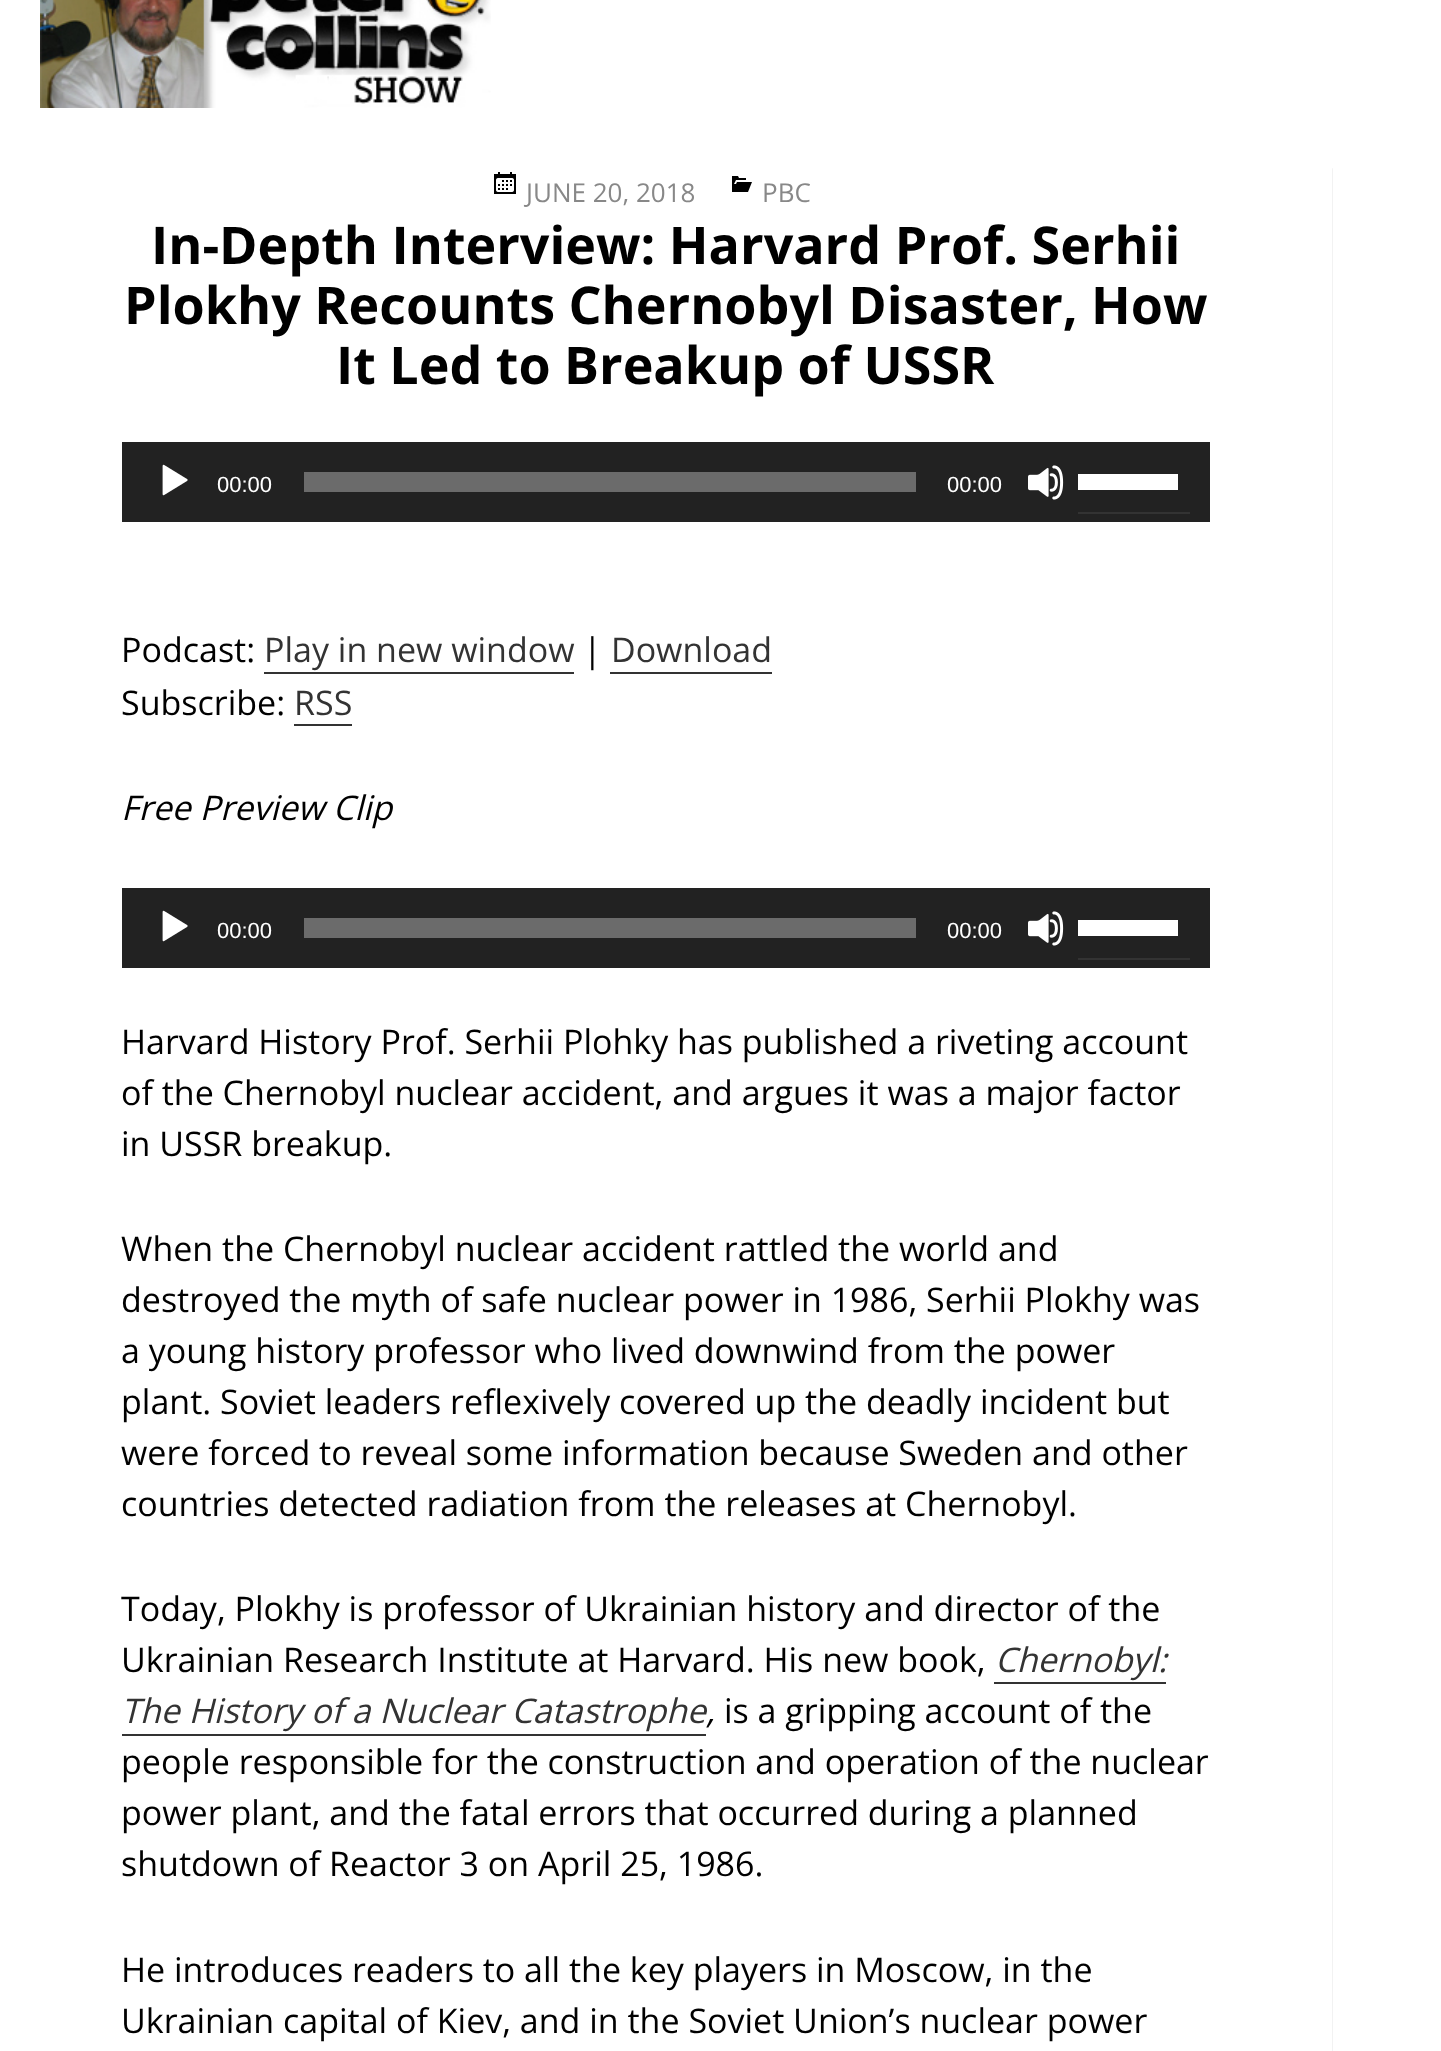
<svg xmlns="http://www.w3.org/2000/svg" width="1441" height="2051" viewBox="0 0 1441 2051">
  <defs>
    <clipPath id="clip1"><rect x="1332" y="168" width="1" height="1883"/></clipPath>
    <filter id="blur1" x="-50%" y="-200%" width="200%" height="500%"><feGaussianBlur stdDeviation="1"/></filter>
  </defs>
  <rect width="100%" height="100%" fill="#ffffff"/>
  <g clip-path="url(#clip1)">
    <rect x="0" y="168" width="1332" height="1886" fill="#000000" fill-opacity="0.15" filter="url(#blur1)"/>
  </g>
  <rect x="0" y="167" width="1333" height="1" fill="#ffffff"/>
  <image x="40" y="0" width="451" height="108" href="img1.png"/>
  <image x="494" y="172" width="22" height="22" href="img2.png"/>
  <text x="526" y="202" font-family="Open Sans" font-size="26" fill="#888888">JUNE 20, 2018</text>
  <image x="732" y="176" width="20" height="16" href="img3.png"/>
  <text x="762" y="202" font-family="Open Sans" font-size="26" fill="#888888">PBC</text>
  <text x="151" y="264" font-family="Open Sans" font-size="52" font-weight="bold" fill="#000000">In-Depth Interview: Harvard Prof. Serhii</text>
  <text x="124" y="324" font-family="Open Sans" font-size="52" font-weight="bold" fill="#000000">Plokhy Recounts Chernobyl Disaster, How</text>
  <text x="336" y="384" font-family="Open Sans" font-size="52" font-weight="bold" fill="#000000">It Led to Breakup of USSR</text>
  <rect x="122" y="442" width="1088" height="80" fill="#222222"/>
  <image x="162" y="464" width="26" height="32" href="img4.png"/>
  <text x="217" y="492" font-family="Liberation Sans" font-size="22" fill="#ffffff">00:00</text>
  <rect x="304" y="472" width="612" height="20" fill="#6b6b6b"/>
  <text x="947" y="492" font-family="Liberation Sans" font-size="22" fill="#ffffff">00:00</text>
  <image x="1028" y="465" width="36" height="35" href="img5.png"/>
  <rect x="1078" y="512" width="112" height="2" fill="#333333"/>
  <rect x="1078" y="474" width="100" height="16" fill="#ffffff"/>
  <text x="121" y="662" font-family="Open Sans" font-size="34" fill="#000000">Podcast:</text>
  <text x="264" y="662" font-family="Open Sans" font-size="34" fill="#333333">Play in new window</text>
  <rect x="264" y="672" width="310" height="2" fill="#333333"/>
  <text x="583" y="662" font-family="Open Sans" font-size="34" fill="#000000">|</text>
  <text x="611" y="662" font-family="Open Sans" font-size="34" fill="#333333">Download</text>
  <rect x="610" y="672" width="162" height="2" fill="#333333"/>
  <text x="121" y="715" font-family="Open Sans" font-size="34" fill="#000000">Subscribe:</text>
  <text x="294" y="715" font-family="Open Sans" font-size="34" fill="#333333">RSS</text>
  <rect x="294" y="724" width="58" height="2" fill="#333333"/>
  <text x="121" y="820" font-family="Open Sans" font-size="34" font-style="italic" fill="#000000">Free Preview Clip</text>
  <rect x="122" y="888" width="1088" height="80" fill="#222222"/>
  <image x="162" y="910" width="26" height="32" href="img4.png"/>
  <text x="217" y="938" font-family="Liberation Sans" font-size="22" fill="#ffffff">00:00</text>
  <rect x="304" y="918" width="612" height="20" fill="#6b6b6b"/>
  <text x="947" y="938" font-family="Liberation Sans" font-size="22" fill="#ffffff">00:00</text>
  <image x="1028" y="911" width="36" height="35" href="img5.png"/>
  <rect x="1078" y="958" width="112" height="2" fill="#333333"/>
  <rect x="1078" y="920" width="100" height="16" fill="#ffffff"/>
  <text x="121" y="1054" font-family="Open Sans" font-size="34" fill="#000000">Harvard History Prof. Serhii Plohky has published a riveting account</text>
  <text x="121" y="1105" font-family="Open Sans" font-size="34" fill="#000000">of the Chernobyl nuclear accident, and argues it was a major factor</text>
  <text x="121" y="1156" font-family="Open Sans" font-size="34" fill="#000000">in USSR breakup.</text>
  <text x="121" y="1261" font-family="Open Sans" font-size="34" fill="#000000">When the Chernobyl nuclear accident rattled the world and</text>
  <text x="121" y="1312" font-family="Open Sans" font-size="34" fill="#000000">destroyed the myth of safe nuclear power in 1986, Serhii Plokhy was</text>
  <text x="121" y="1363" font-family="Open Sans" font-size="34" fill="#000000">a young history professor who lived downwind from the power</text>
  <text x="121" y="1414" font-family="Open Sans" font-size="34" fill="#000000">plant. Soviet leaders reflexively covered up the deadly incident but</text>
  <text x="121" y="1465" font-family="Open Sans" font-size="34" fill="#000000">were forced to reveal some information because Sweden and other</text>
  <text x="121" y="1516" font-family="Open Sans" font-size="34" fill="#000000">countries detected radiation from the releases at Chernobyl.</text>
  <text x="121" y="1621" font-family="Open Sans" font-size="34" fill="#000000">Today, Plokhy is professor of Ukrainian history and director of the</text>
  <text x="121" y="1672" font-family="Open Sans" font-size="34" fill="#000000">Ukrainian Research Institute at Harvard. His new book,</text>
  <text x="995" y="1672" font-family="Open Sans" font-size="34" font-style="italic" fill="#333333">Chernobyl:</text>
  <rect x="994" y="1682" width="172" height="2" fill="#333333"/>
  <text x="121" y="1723" font-family="Open Sans" font-size="34" font-style="italic" fill="#333333">The History of a Nuclear Catastrophe</text>
  <rect x="122" y="1734" width="584" height="2" fill="#333333"/>
  <text x="706" y="1723" font-family="Open Sans" font-size="34" font-style="italic" fill="#000000">,</text>
  <text x="724" y="1723" font-family="Open Sans" font-size="34" fill="#000000">is a gripping account of the</text>
  <text x="121" y="1774" font-family="Open Sans" font-size="34" fill="#000000">people responsible for the construction and operation of the nuclear</text>
  <text x="121" y="1825" font-family="Open Sans" font-size="34" fill="#000000">power plant, and the fatal errors that occurred during a planned</text>
  <text x="121" y="1876" font-family="Open Sans" font-size="34" fill="#000000">shutdown of Reactor 3 on April 25, 1986.</text>
  <text x="121" y="1982" font-family="Open Sans" font-size="34" fill="#000000">He introduces readers to all the key players in Moscow, in the</text>
  <text x="121" y="2033" font-family="Open Sans" font-size="34" fill="#000000">Ukrainian capital of Kiev, and in the Soviet Union’s nuclear power</text>
</svg>
